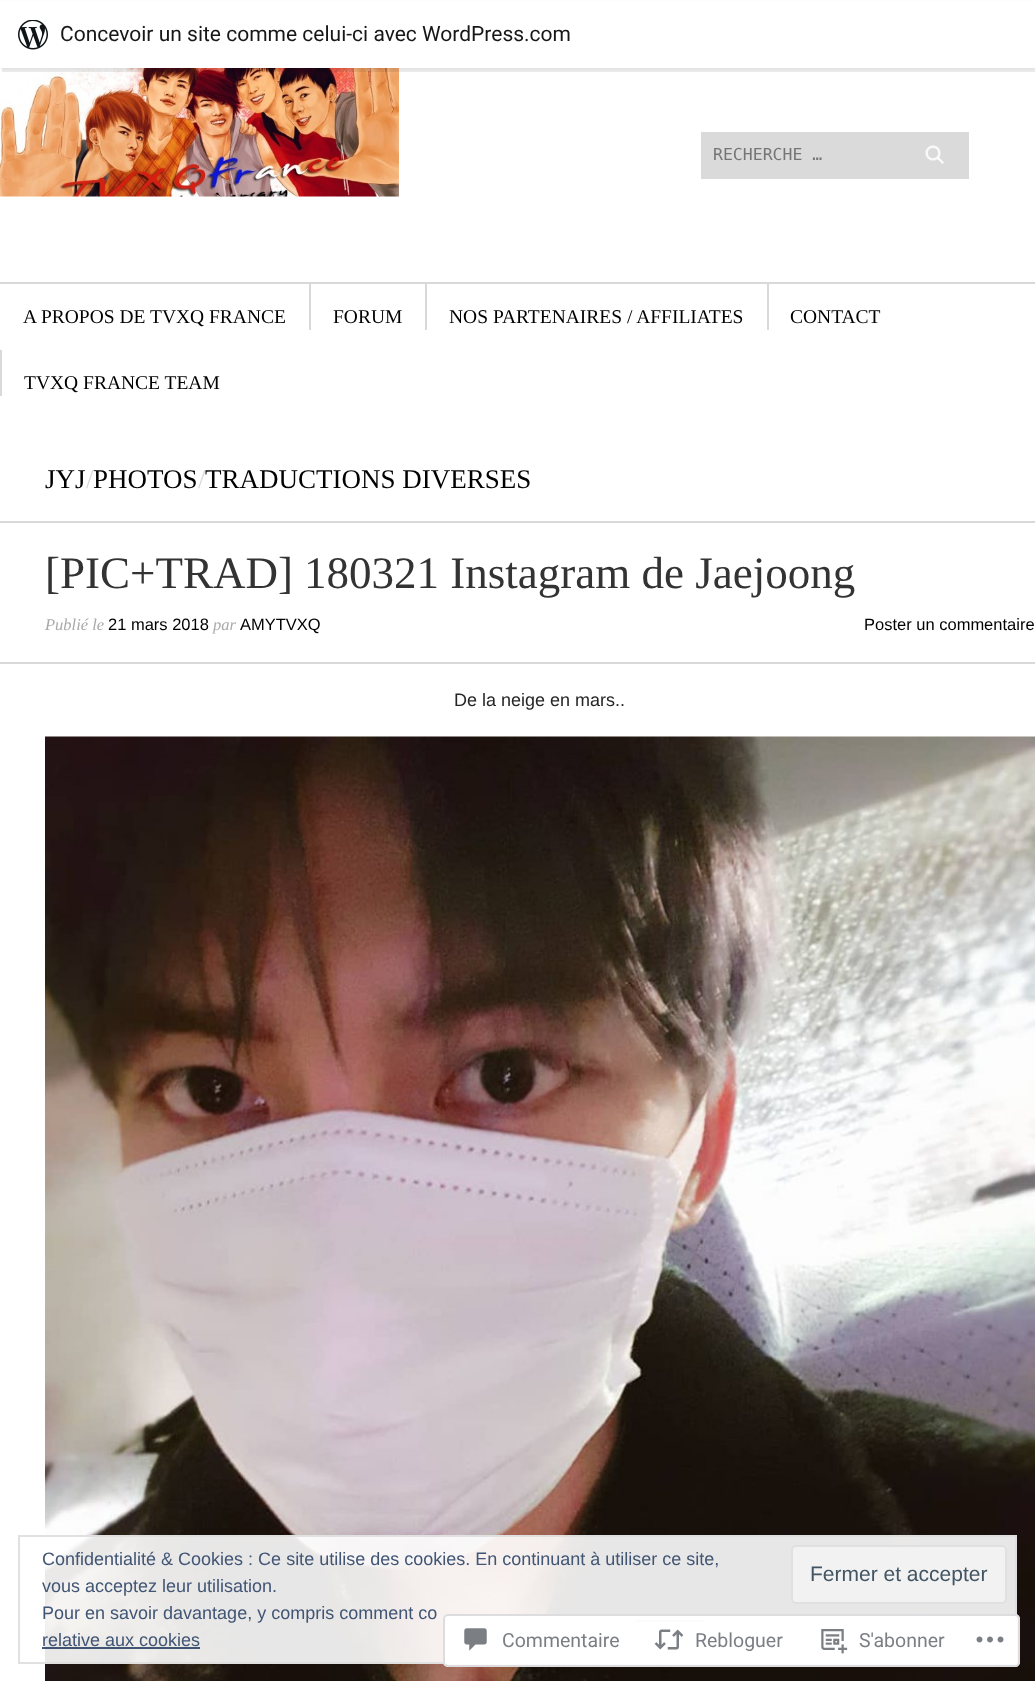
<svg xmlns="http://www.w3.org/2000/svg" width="1035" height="1681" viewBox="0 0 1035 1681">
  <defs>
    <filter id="blur1" x="-50%" y="-200%" width="200%" height="500%"><feGaussianBlur stdDeviation="1.5"/></filter>
  </defs>
  <rect width="100%" height="100%" fill="#ffffff"/>
  <image x="0" y="68" width="399" height="129" href="img2.png"/>
  <rect x="0" y="2" width="1035" height="67" fill="#000000" fill-opacity="0.05" filter="url(#blur1)"/>
  <path d="M2 68V72H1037V5H1035V68Z" fill="#000000" fill-opacity="0.08"/>
  <rect x="0" y="1" width="1035" height="67" fill="#ffffff"/>
  <image x="18" y="20" width="30" height="30" href="img1.png"/>
  <text x="60" y="41" font-family="Roboto" font-size="21" fill="#171717">Concevoir un site comme celui-ci avec WordPress.com</text>
  <rect x="701" y="132" width="268" height="47" fill="#dadada"/>
  <image x="925" y="145" width="19" height="19" href="img3.png"/>
  <text x="713" y="160" font-family="DejaVu Sans Mono" font-size="16.5" fill="#757575">RECHERCHE …</text>
  <rect x="0" y="282" width="1035" height="2" fill="#d9d9d9"/>
  <text x="23" y="323" font-family="Liberation Serif" font-size="19.5" fill="#000000">A PROPOS DE TVXQ FRANCE</text>
  <rect x="309" y="284" width="2" height="46" fill="#d9d9d9"/>
  <text x="333" y="323" font-family="Liberation Serif" font-size="19.5" fill="#000000">FORUM</text>
  <rect x="425" y="284" width="2" height="46" fill="#d9d9d9"/>
  <text x="449" y="323" font-family="Liberation Serif" font-size="19.5" fill="#000000">NOS PARTENAIRES / AFFILIATES</text>
  <rect x="767" y="284" width="2" height="46" fill="#d9d9d9"/>
  <text x="790" y="323" font-family="Liberation Serif" font-size="19.5" fill="#000000">CONTACT</text>
  <rect x="0" y="350" width="2" height="46" fill="#d9d9d9"/>
  <text x="24" y="389" font-family="Liberation Serif" font-size="19.5" fill="#000000">TVXQ FRANCE TEAM</text>
  <rect x="0" y="521" width="1035" height="2" fill="#d9d9d9"/>
  <text x="45" y="488" font-family="Liberation Serif" font-size="27" fill="#000000">JYJ</text>
  <text x="86" y="488" font-family="Liberation Serif" font-size="27" fill="#d9d9d9">/</text>
  <text x="93" y="488" font-family="Liberation Serif" font-size="27" fill="#000000">PHOTOS</text>
  <text x="198" y="488" font-family="Liberation Serif" font-size="27" fill="#d9d9d9">/</text>
  <text x="205" y="488" font-family="Liberation Serif" font-size="27" fill="#000000">TRADUCTIONS DIVERSES</text>
  <rect x="0" y="662" width="1035" height="2" fill="#d9d9d9"/>
  <text x="45" y="588" font-family="Liberation Serif" font-size="45" fill="#333333">[PIC+TRAD] 180321 Instagram de Jaejoong</text>
  <text x="45" y="630" font-family="Liberation Serif" font-size="16.5" font-style="italic" fill="#aaa9a9">Publié le</text>
  <text x="108" y="630" font-family="Liberation Sans" font-size="16.5" fill="#000000">21 mars 2018</text>
  <text x="213" y="630" font-family="Liberation Serif" font-size="16.5" font-style="italic" fill="#aaa9a9">par</text>
  <text x="240" y="630" font-family="Liberation Sans" font-size="16.5" fill="#000000">AMYTVXQ</text>
  <text x="864" y="630" font-family="Liberation Sans" font-size="16.5" fill="#000000">Poster un commentaire</text>
  <text x="454" y="706" font-family="Liberation Sans" font-size="18" fill="#262626">De la neige en mars..</text>
  <image x="45" y="736" width="990" height="945" href="img4.png"/>
  <rect x="45" y="1535" width="972" height="129" fill="#ffffff" fill-opacity="0.9"/>
  <rect x="19" y="1536" width="997" height="127" fill="none" stroke="#dedede" stroke-opacity="0.9" stroke-width="2"/>
  <text x="42" y="1565" font-family="Liberation Sans" font-size="18" fill="#415574">Confidentialité &amp; Cookies : Ce site utilise des cookies. En continuant à utiliser ce site,</text>
  <text x="42" y="1592" font-family="Liberation Sans" font-size="18" fill="#415574">vous acceptez leur utilisation.</text>
  <rect x="791" y="1545" width="216" height="59" rx="5" fill="#f2f2f2"/>
  <rect x="792" y="1546" width="214" height="57" rx="4" fill="none" stroke="#dedede" stroke-opacity="0.9" stroke-width="2"/>
  <text x="810" y="1581" font-family="Liberation Sans" font-size="21" fill="#425563">Fermer et accepter</text>
  <text x="42" y="1619" font-family="Liberation Sans" font-size="18" fill="#415574">Pour en savoir davantage, y compris comment co</text>
  <text x="42" y="1646" font-family="Liberation Sans" font-size="18" fill="#415574">relative aux cookies</text>
  <rect x="636" y="1620" width="69" height="2" fill="#2c3f5e"/>
  <rect x="42" y="1647" width="158" height="2" fill="#2e4467" fill-opacity="0.9"/>
  <rect x="443" y="1614" width="577" height="53" rx="5" fill="#ffffff" fill-opacity="0.98"/>
  <rect x="444" y="1615" width="575" height="51" rx="4" fill="none" stroke="#dcdcde" stroke-opacity="0.98" stroke-width="2"/>
  <image x="464" y="1628" width="23" height="23" href="img5.png"/>
  <text x="502" y="1647" font-family="Roboto" font-size="19.5" fill="#7b7f84">Commentaire</text>
  <image x="654" y="1629" width="30" height="21" href="img6.png"/>
  <text x="695" y="1647" font-family="Roboto" font-size="19.5" fill="#7b7f84">Rebloguer</text>
  <image x="821" y="1629" width="27" height="25" href="img7.png"/>
  <text x="859" y="1647" font-family="Roboto" font-size="19.5" fill="#7b7f84">S'abonner</text>
  <image x="976" y="1636" width="28" height="7" href="img8.png"/>
</svg>
